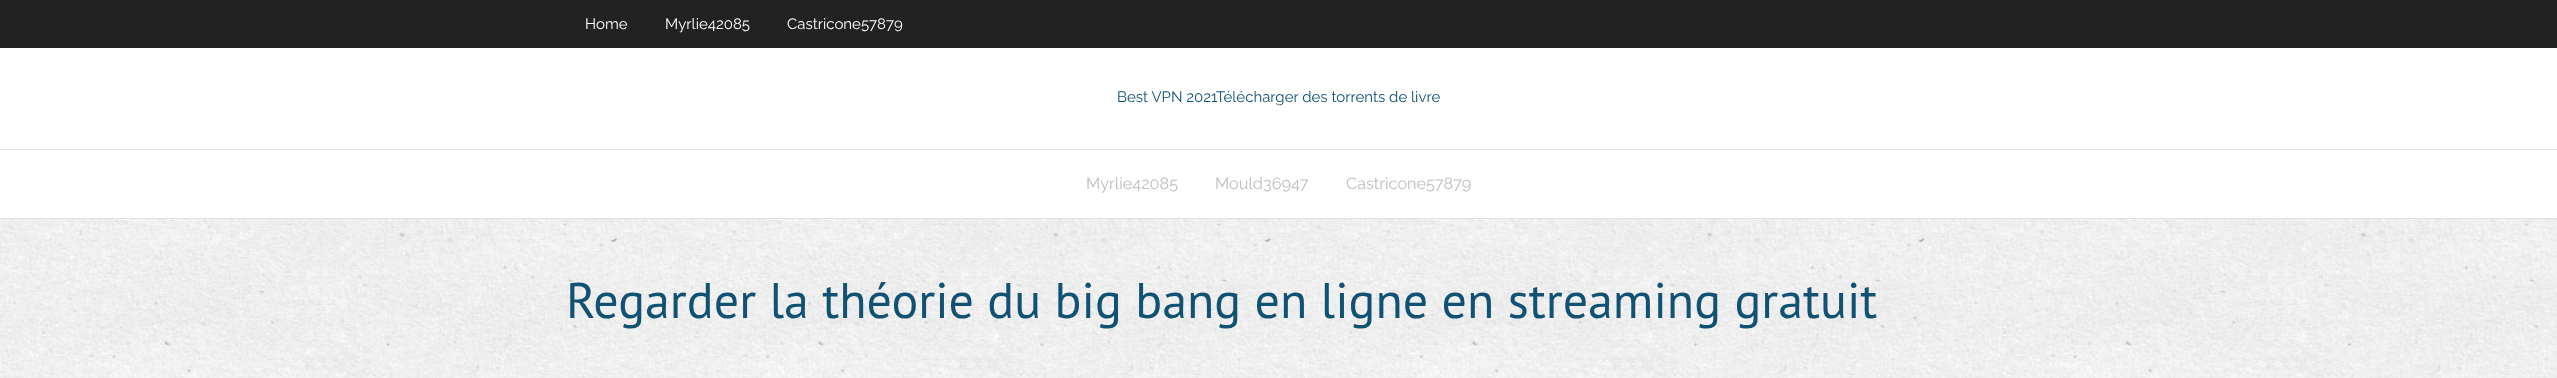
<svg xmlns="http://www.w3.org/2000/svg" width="2557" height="378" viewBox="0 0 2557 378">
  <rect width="100%" height="100%" fill="#ffffff"/>
  <rect x="0" y="0" width="2557" height="48" fill="#222222"/>
  <text x="585" y="29" font-family="Raleway" font-size="15" fill="#ffffff">Home</text>
  <text x="665" y="29" font-family="Raleway" font-size="15" fill="#ffffff">Myrlie42085</text>
  <text x="787" y="29" font-family="Raleway" font-size="15" fill="#ffffff">Castricone57879</text>
  <text x="1117" y="102" font-family="Raleway" font-size="15" fill="#115172">Best VPN 2021</text>
  <text x="1216" y="102" font-family="Raleway" font-size="15" fill="#115172">Télécharger des torrents de livre</text>
  <rect x="0" y="149" width="2557" height="1" fill="#e1e1e1"/>
  <rect x="0" y="218" width="2557" height="1" fill="#e1e1e1"/>
  <text x="1086" y="189" font-family="Raleway" font-size="16.25" fill="#bebebe">Myrlie42085</text>
  <text x="1215" y="189" font-family="Raleway" font-size="16.25" fill="#bebebe">Mould36947</text>
  <text x="1346" y="189" font-family="Raleway" font-size="16.25" fill="#bebebe">Castricone57879</text>
  <image x="0" y="219" width="2557" height="159" href="img1.png"/>
  <text x="566" y="318" font-family="PT Sans" font-size="50" fill="#115172">Regarder la théorie du big bang en ligne en streaming gratuit</text>
</svg>
